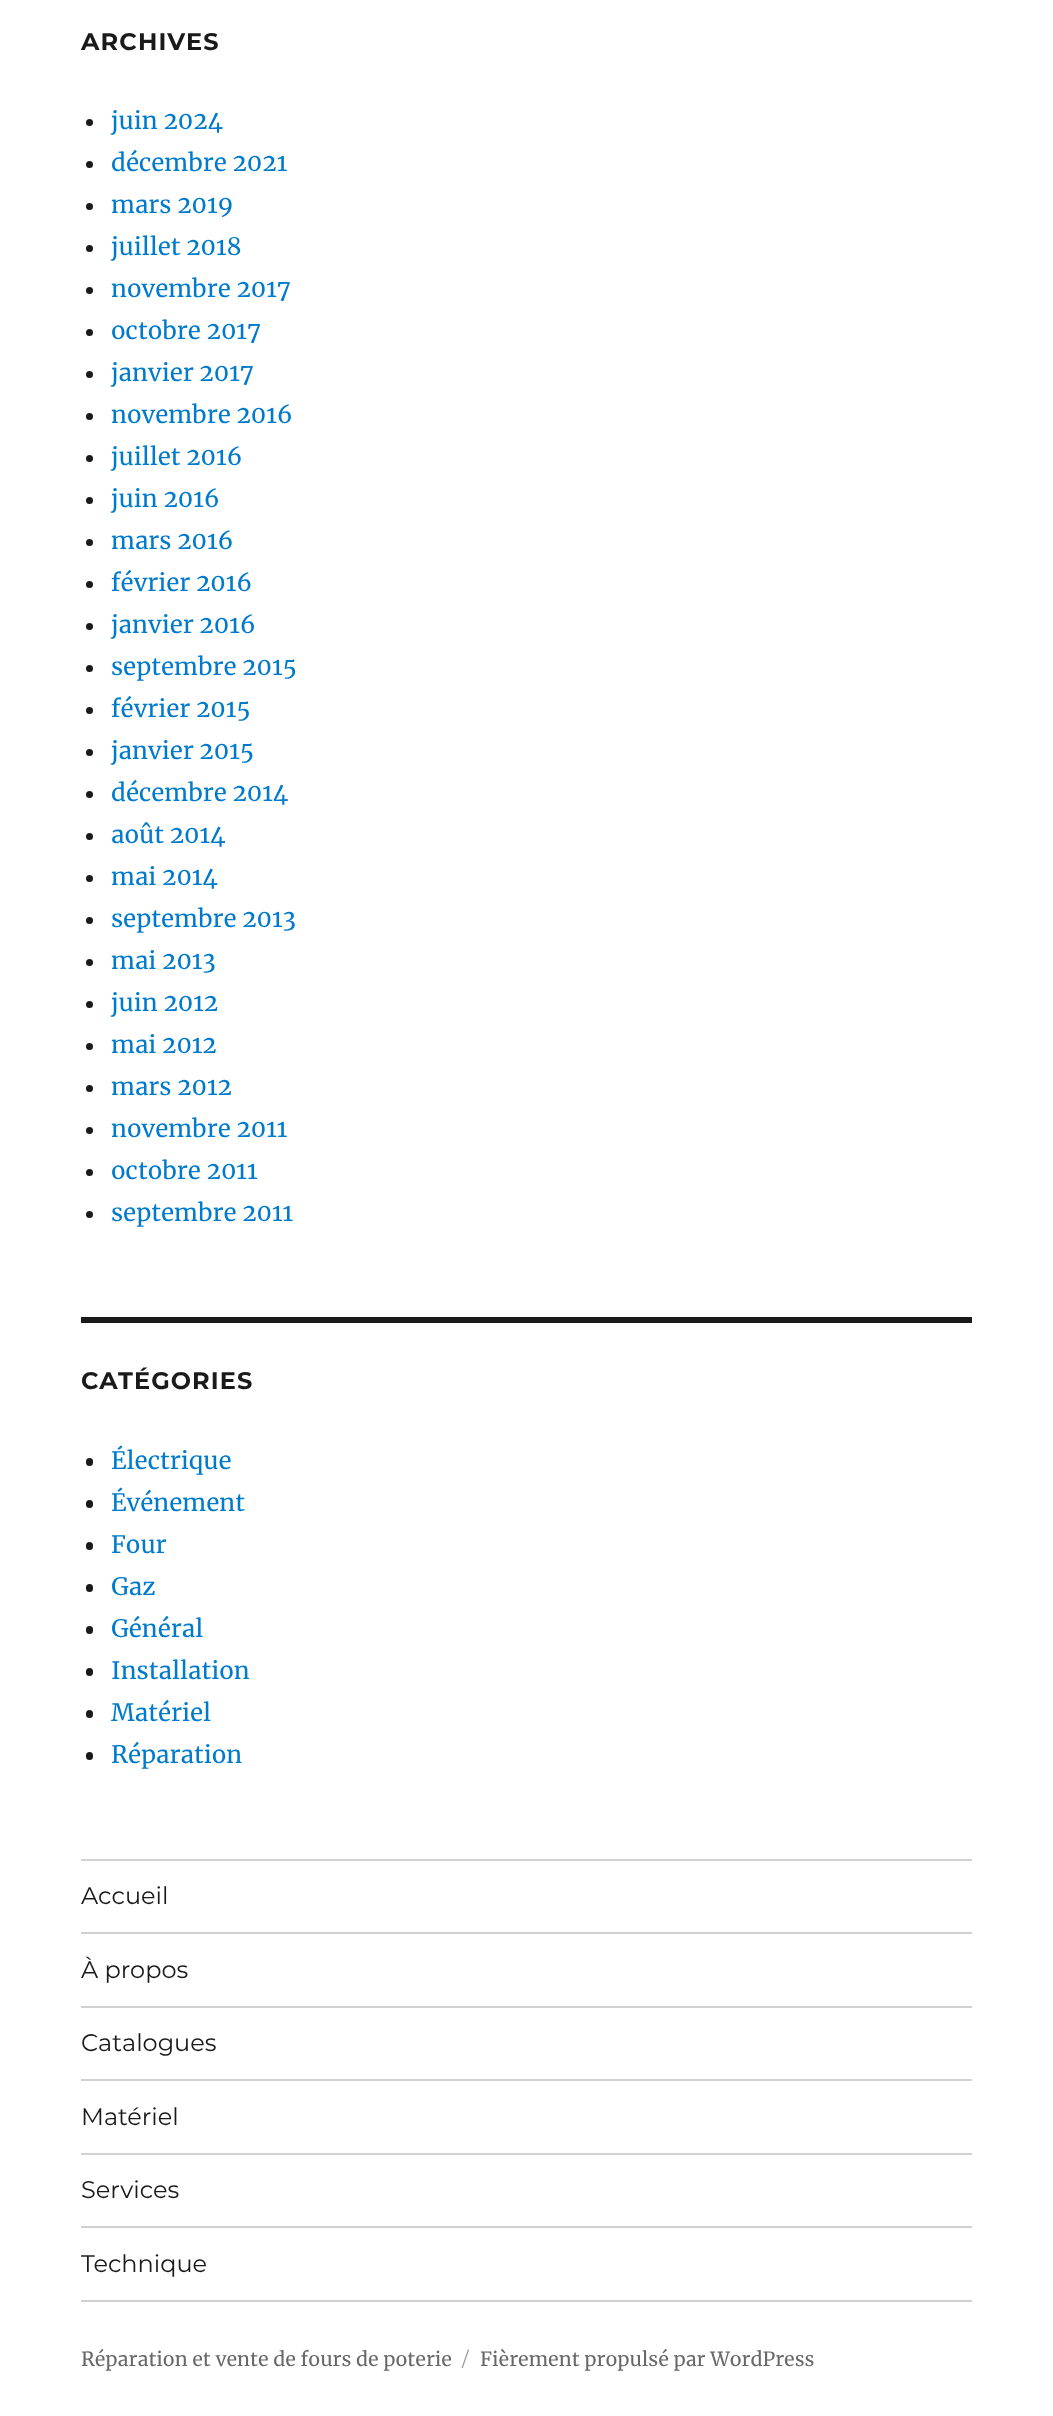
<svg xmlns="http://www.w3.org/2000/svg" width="1053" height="2416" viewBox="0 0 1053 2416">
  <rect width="100%" height="100%" fill="#ffffff"/>
  <text x="81" y="50" font-family="Montserrat" font-size="24" font-weight="100" letter-spacing="1.1" fill="#1a1a1a">ARCHIVES</text>
  <circle cx="89.5" cy="122.5" r="3.5" fill="#1a1a1a"/>
  <text x="111" y="129" font-family="Merriweather" font-size="24" fill="#007acc">juin 2024</text>
  <circle cx="89.5" cy="164.5" r="3.5" fill="#1a1a1a"/>
  <text x="111" y="171" font-family="Merriweather" font-size="24" fill="#007acc">décembre 2021</text>
  <circle cx="89.5" cy="206.5" r="3.5" fill="#1a1a1a"/>
  <text x="111" y="213" font-family="Merriweather" font-size="24" fill="#007acc">mars 2019</text>
  <circle cx="89.5" cy="248.5" r="3.5" fill="#1a1a1a"/>
  <text x="111" y="255" font-family="Merriweather" font-size="24" fill="#007acc">juillet 2018</text>
  <circle cx="89.5" cy="290.5" r="3.5" fill="#1a1a1a"/>
  <text x="111" y="297" font-family="Merriweather" font-size="24" fill="#007acc">novembre 2017</text>
  <circle cx="89.5" cy="332.5" r="3.5" fill="#1a1a1a"/>
  <text x="111" y="339" font-family="Merriweather" font-size="24" fill="#007acc">octobre 2017</text>
  <circle cx="89.5" cy="374.5" r="3.5" fill="#1a1a1a"/>
  <text x="111" y="381" font-family="Merriweather" font-size="24" fill="#007acc">janvier 2017</text>
  <circle cx="89.5" cy="416.5" r="3.5" fill="#1a1a1a"/>
  <text x="111" y="423" font-family="Merriweather" font-size="24" fill="#007acc">novembre 2016</text>
  <circle cx="89.5" cy="458.5" r="3.5" fill="#1a1a1a"/>
  <text x="111" y="465" font-family="Merriweather" font-size="24" fill="#007acc">juillet 2016</text>
  <circle cx="89.5" cy="500.5" r="3.5" fill="#1a1a1a"/>
  <text x="111" y="507" font-family="Merriweather" font-size="24" fill="#007acc">juin 2016</text>
  <circle cx="89.5" cy="542.5" r="3.5" fill="#1a1a1a"/>
  <text x="111" y="549" font-family="Merriweather" font-size="24" fill="#007acc">mars 2016</text>
  <circle cx="89.5" cy="584.5" r="3.5" fill="#1a1a1a"/>
  <text x="111" y="591" font-family="Merriweather" font-size="24" fill="#007acc">février 2016</text>
  <circle cx="89.5" cy="626.5" r="3.5" fill="#1a1a1a"/>
  <text x="111" y="633" font-family="Merriweather" font-size="24" fill="#007acc">janvier 2016</text>
  <circle cx="89.5" cy="668.5" r="3.5" fill="#1a1a1a"/>
  <text x="111" y="675" font-family="Merriweather" font-size="24" fill="#007acc">septembre 2015</text>
  <circle cx="89.5" cy="710.5" r="3.5" fill="#1a1a1a"/>
  <text x="111" y="717" font-family="Merriweather" font-size="24" fill="#007acc">février 2015</text>
  <circle cx="89.5" cy="752.5" r="3.5" fill="#1a1a1a"/>
  <text x="111" y="759" font-family="Merriweather" font-size="24" fill="#007acc">janvier 2015</text>
  <circle cx="89.5" cy="794.5" r="3.5" fill="#1a1a1a"/>
  <text x="111" y="801" font-family="Merriweather" font-size="24" fill="#007acc">décembre 2014</text>
  <circle cx="89.5" cy="836.5" r="3.5" fill="#1a1a1a"/>
  <text x="111" y="843" font-family="Merriweather" font-size="24" fill="#007acc">août 2014</text>
  <circle cx="89.5" cy="878.5" r="3.5" fill="#1a1a1a"/>
  <text x="111" y="885" font-family="Merriweather" font-size="24" fill="#007acc">mai 2014</text>
  <circle cx="89.5" cy="920.5" r="3.5" fill="#1a1a1a"/>
  <text x="111" y="927" font-family="Merriweather" font-size="24" fill="#007acc">septembre 2013</text>
  <circle cx="89.5" cy="962.5" r="3.5" fill="#1a1a1a"/>
  <text x="111" y="969" font-family="Merriweather" font-size="24" fill="#007acc">mai 2013</text>
  <circle cx="89.5" cy="1004.5" r="3.5" fill="#1a1a1a"/>
  <text x="111" y="1011" font-family="Merriweather" font-size="24" fill="#007acc">juin 2012</text>
  <circle cx="89.5" cy="1046.5" r="3.5" fill="#1a1a1a"/>
  <text x="111" y="1053" font-family="Merriweather" font-size="24" fill="#007acc">mai 2012</text>
  <circle cx="89.5" cy="1088.5" r="3.5" fill="#1a1a1a"/>
  <text x="111" y="1095" font-family="Merriweather" font-size="24" fill="#007acc">mars 2012</text>
  <circle cx="89.5" cy="1130.5" r="3.5" fill="#1a1a1a"/>
  <text x="111" y="1137" font-family="Merriweather" font-size="24" fill="#007acc">novembre 2011</text>
  <circle cx="89.5" cy="1172.5" r="3.5" fill="#1a1a1a"/>
  <text x="111" y="1179" font-family="Merriweather" font-size="24" fill="#007acc">octobre 2011</text>
  <circle cx="89.5" cy="1214.5" r="3.5" fill="#1a1a1a"/>
  <text x="111" y="1221" font-family="Merriweather" font-size="24" fill="#007acc">septembre 2011</text>
  <rect x="81" y="1317" width="891" height="6" fill="#1a1a1a"/>
  <text x="81" y="1389" font-family="Montserrat" font-size="24" font-weight="100" letter-spacing="1.1" fill="#1a1a1a">CATÉGORIES</text>
  <rect x="86" y="1458" width="7" height="8" rx="3.5" fill="#1a1a1a"/>
  <text x="111" y="1469" font-family="Merriweather" font-size="24" fill="#007acc">Électrique</text>
  <rect x="86" y="1500" width="7" height="8" rx="3.5" fill="#1a1a1a"/>
  <text x="111" y="1511" font-family="Merriweather" font-size="24" fill="#007acc">Événement</text>
  <rect x="86" y="1542" width="7" height="8" rx="3.5" fill="#1a1a1a"/>
  <text x="111" y="1553" font-family="Merriweather" font-size="24" fill="#007acc">Four</text>
  <rect x="86" y="1584" width="7" height="8" rx="3.5" fill="#1a1a1a"/>
  <text x="111" y="1595" font-family="Merriweather" font-size="24" fill="#007acc">Gaz</text>
  <rect x="86" y="1626" width="7" height="8" rx="3.5" fill="#1a1a1a"/>
  <text x="111" y="1637" font-family="Merriweather" font-size="24" fill="#007acc">Général</text>
  <rect x="86" y="1668" width="7" height="8" rx="3.5" fill="#1a1a1a"/>
  <text x="111" y="1679" font-family="Merriweather" font-size="24" fill="#007acc">Installation</text>
  <rect x="86" y="1710" width="7" height="8" rx="3.5" fill="#1a1a1a"/>
  <text x="111" y="1721" font-family="Merriweather" font-size="24" fill="#007acc">Matériel</text>
  <rect x="86" y="1752" width="7" height="8" rx="3.5" fill="#1a1a1a"/>
  <text x="111" y="1763" font-family="Merriweather" font-size="24" fill="#007acc">Réparation</text>
  <rect x="81" y="2300" width="891" height="2" fill="#d1d1d1"/>
  <rect x="81" y="1859" width="891" height="2" fill="#d1d1d1"/>
  <text x="81" y="1904" font-family="'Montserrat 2'" font-size="24" font-weight="100" fill="#1a1a1a">Accueil</text>
  <rect x="81" y="1932" width="891" height="2" fill="#d1d1d1"/>
  <text x="81" y="1978" font-family="'Montserrat 2'" font-size="24" font-weight="100" fill="#1a1a1a">À propos</text>
  <rect x="81" y="2006" width="891" height="2" fill="#d1d1d1"/>
  <text x="81" y="2051" font-family="'Montserrat 2'" font-size="24" font-weight="100" fill="#1a1a1a">Catalogues</text>
  <rect x="81" y="2079" width="891" height="2" fill="#d1d1d1"/>
  <text x="81" y="2125" font-family="'Montserrat 2'" font-size="24" font-weight="100" fill="#1a1a1a">Matériel</text>
  <rect x="81" y="2153" width="891" height="2" fill="#d1d1d1"/>
  <text x="81" y="2198" font-family="'Montserrat 2'" font-size="24" font-weight="100" fill="#1a1a1a">Services</text>
  <rect x="81" y="2226" width="891" height="2" fill="#d1d1d1"/>
  <text x="81" y="2272" font-family="'Montserrat 2'" font-size="24" font-weight="100" fill="#1a1a1a">Technique</text>
  <text x="81" y="2366" font-family="Merriweather" font-size="19.5" fill="#686868">Réparation et vente de fours de poterie</text>
  <text x="462" y="2366" font-family="'Montserrat 2'" font-size="19.5" font-weight="100" fill="#959595">/</text>
  <text x="480" y="2366" font-family="Merriweather" font-size="19.5" fill="#686868">Fièrement propulsé par WordPress</text>
</svg>
